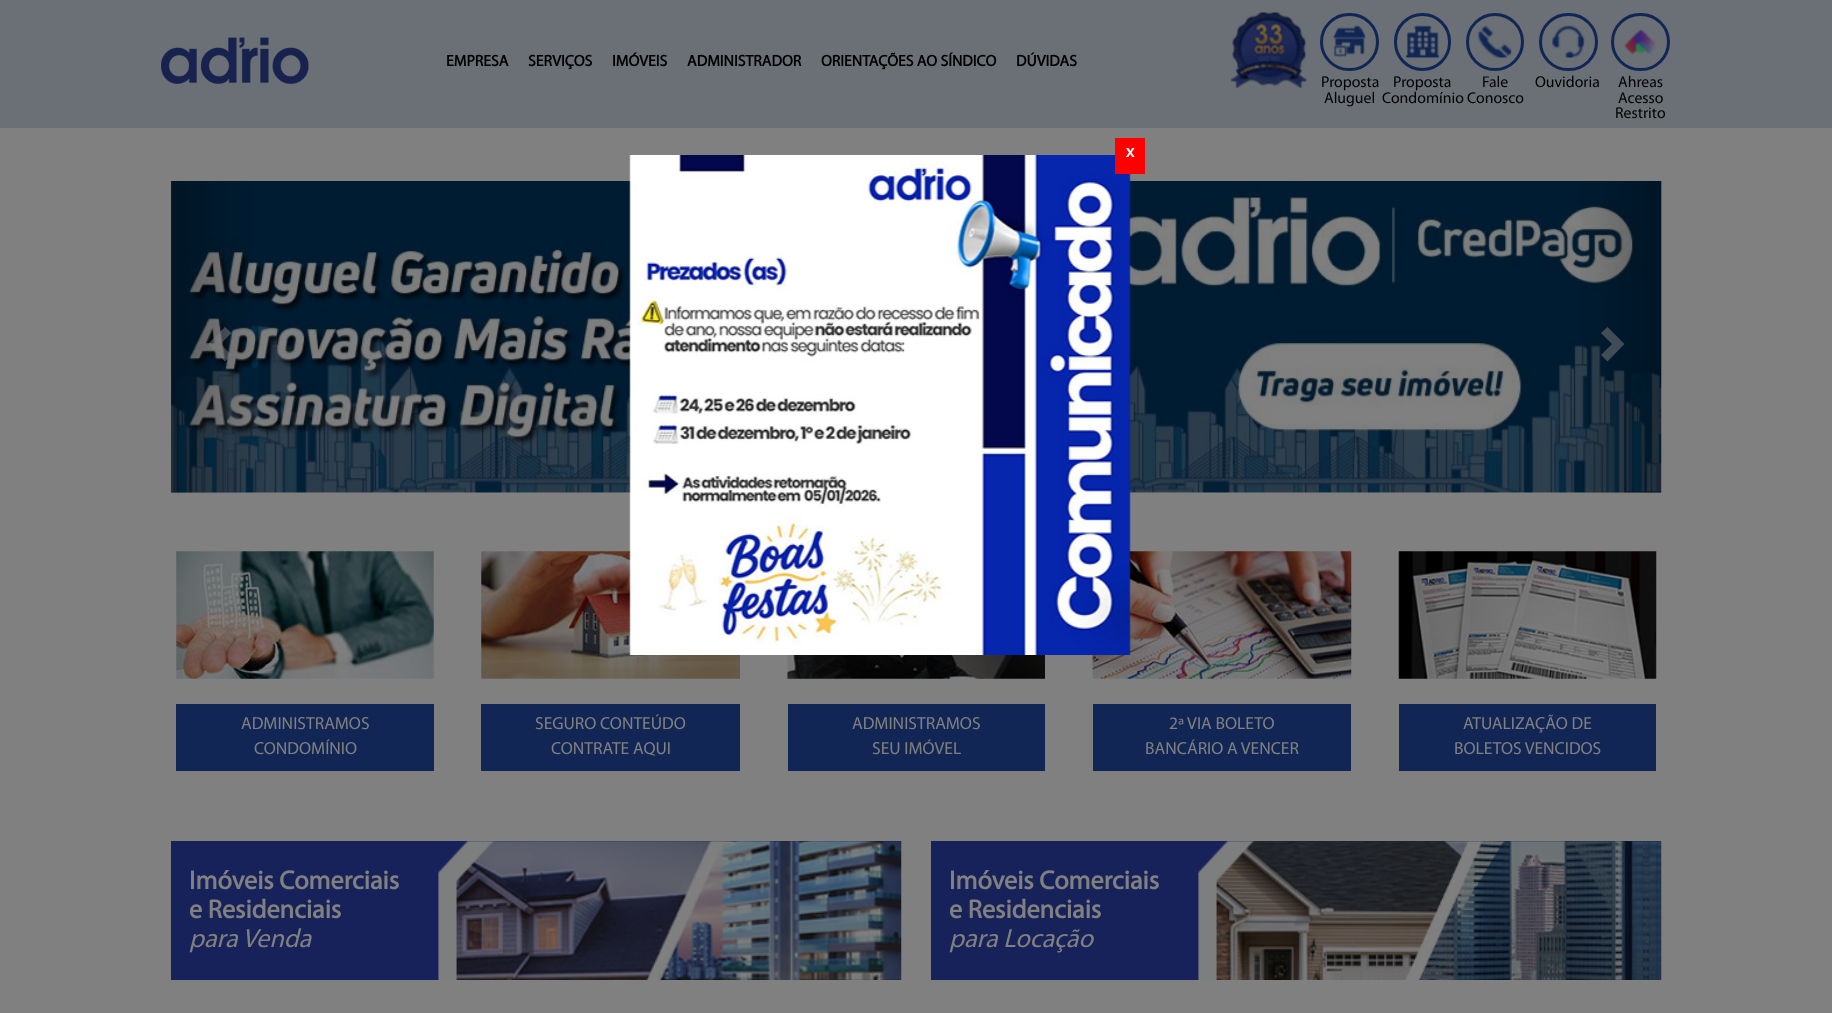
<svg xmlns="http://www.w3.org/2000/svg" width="1832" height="1013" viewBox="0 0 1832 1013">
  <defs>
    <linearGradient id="g1" gradientUnits="userSpaceOnUse" x1="171" y1="337" x2="260" y2="337"><stop offset="0" stop-color="#000000" stop-opacity="0.25"/><stop offset="1" stop-color="#000000" stop-opacity="0"/></linearGradient>
    <linearGradient id="g2" gradientUnits="userSpaceOnUse" x1="1573" y1="337" x2="1661" y2="337"><stop offset="0" stop-color="#000000" stop-opacity="0"/><stop offset="1" stop-color="#000000" stop-opacity="0.25"/></linearGradient>
  </defs>
  <rect width="100%" height="100%" fill="#808080"/>
  <rect x="0" y="0" width="1832" height="128" fill="#6a7075"/>
  <image x="161" y="37" width="148" height="47" href="img1.png"/>
  <text x="446" y="66" font-family="Myriad" font-size="15.75" font-weight="bold" fill="#000000">EMPRESA</text>
  <text x="528" y="66" font-family="Myriad" font-size="15.75" font-weight="bold" fill="#000000">SERVIÇOS</text>
  <text x="612" y="66" font-family="Myriad" font-size="15.75" font-weight="bold" fill="#000000">IMÓVEIS</text>
  <text x="687" y="66" font-family="Myriad" font-size="15.75" font-weight="bold" fill="#000000">ADMINISTRADOR</text>
  <text x="821" y="66" font-family="Myriad" font-size="15.75" font-weight="bold" fill="#000000">ORIENTAÇÕES AO SÍNDICO</text>
  <text x="1016" y="66" font-family="Myriad" font-size="15.75" font-weight="bold" fill="#000000">DÚVIDAS</text>
  <image x="1231" y="12" width="76" height="76" href="img2.png"/>
  <rect x="1321.5" y="14.5" width="56" height="55" rx="27.5" fill="none" stroke="#112654" stroke-width="3"/>
  <image x="1333" y="25" width="33" height="32" href="img3.png"/>
  <text x="1321" y="87" font-family="Myriad" font-size="15.75" fill="#000000">Proposta</text>
  <text x="1324" y="103" font-family="Myriad" font-size="15.75" fill="#000000">Aluguel</text>
  <circle cx="1495" cy="42" r="27.5" fill="none" stroke="#112654" stroke-width="3"/>
  <image x="1478" y="25" width="34" height="33" href="img4.png"/>
  <text x="1482" y="87" font-family="Myriad" font-size="15.75" fill="#000000">Fale</text>
  <rect x="1540.5" y="14.5" width="56" height="55" rx="27.5" fill="none" stroke="#112654" stroke-width="3"/>
  <image x="1552" y="25" width="33" height="33" href="img5.png"/>
  <text x="1535" y="87" font-family="Myriad" font-size="15.75" fill="#000000">Ouvidoria</text>
  <rect x="1612.5" y="14.5" width="56" height="55" rx="27.5" fill="none" stroke="#112654" stroke-width="3"/>
  <image x="1624" y="29" width="33" height="26" href="img6.png"/>
  <text x="1618" y="87" font-family="Myriad" font-size="15.75" fill="#000000">Ahreas</text>
  <text x="1618" y="103" font-family="Myriad" font-size="15.75" fill="#000000">Acesso</text>
  <text x="1615" y="118" font-family="Myriad" font-size="15.75" fill="#000000">Restrito</text>
  <rect x="1395.5" y="14.5" width="54" height="55" rx="27" fill="none" stroke="#112654" stroke-width="3"/>
  <image x="1406" y="25" width="34" height="33" href="img7.png"/>
  <text x="1393" y="87" font-family="Myriad" font-size="15.75" fill="#000000">Proposta</text>
  <text x="1382" y="103" font-family="Myriad" font-size="15.75" fill="#000000">Condomínio Conosco</text>
  <image x="171" y="181" width="1491" height="312" href="img8.png"/>
  <rect x="171" y="181" width="81" height="312" fill="url(#g1)"/>
  <path d="M231.5 333L220.5 344L231.5 355L225 361.5L208 344L225 327Z" fill="#808080" fill-opacity="0.5"/>
  <rect x="1581" y="181" width="80" height="312" fill="url(#g2)"/>
  <path d="M1624.5 344L1607.5 361.5L1601 355L1612 344L1601 333L1607.5 327Z" fill="#808080" fill-opacity="0.5"/>
  <image x="176" y="551" width="258" height="128" href="img9.png"/>
  <rect x="176" y="704" width="258" height="67" fill="#112654"/>
  <text x="241" y="729" font-family="Myriad" font-size="17.5" fill="#808080">ADMINISTRAMOS</text>
  <text x="254" y="754" font-family="Myriad" font-size="17.5" fill="#808080">CONDOMÍNIO</text>
  <image x="481" y="551" width="259" height="128" href="img10.png"/>
  <rect x="481" y="704" width="259" height="67" fill="#112654"/>
  <text x="535" y="729" font-family="Myriad" font-size="17.5" fill="#808080">SEGURO CONTEÚDO</text>
  <text x="551" y="754" font-family="Myriad" font-size="17.5" fill="#808080">CONTRATE AQUI</text>
  <image x="787" y="655" width="258" height="24" href="img11.png"/>
  <rect x="788" y="704" width="257" height="67" fill="#112654"/>
  <text x="852" y="729" font-family="Myriad" font-size="17.5" fill="#808080">ADMINISTRAMOS</text>
  <text x="872" y="754" font-family="Myriad" font-size="17.5" fill="#808080">SEU IMÓVEL</text>
  <image x="1092" y="551" width="260" height="128" href="img12.png"/>
  <rect x="1093" y="704" width="258" height="67" fill="#112654"/>
  <text x="1169" y="729" font-family="Myriad" font-size="17.5" fill="#808080">2ª VIA BOLETO</text>
  <text x="1145" y="754" font-family="Myriad" font-size="17.5" fill="#808080">BANCÁRIO A VENCER</text>
  <image x="1398" y="551" width="259" height="128" href="img13.png"/>
  <rect x="1399" y="704" width="257" height="67" fill="#112654"/>
  <text x="1463" y="729" font-family="Myriad" font-size="17.5" fill="#808080">ATUALIZAÇÃO DE</text>
  <text x="1454" y="754" font-family="Myriad" font-size="17.5" fill="#808080">BOLETOS VENCIDOS</text>
  <rect x="171" y="841" width="730" height="139" fill="#112654"/>
  <image x="171" y="841" width="731" height="139" href="img14.png"/>
  <text x="189" y="889" font-family="Myriad" font-size="26.25" font-weight="bold" fill="#808080">Imóveis Comerciais</text>
  <text x="189" y="918" font-family="Myriad" font-size="26.25" font-weight="bold" fill="#808080">e Residenciais</text>
  <text x="189" y="947" font-family="Myriad" font-size="26.25" font-style="italic" fill="#808080">para Venda</text>
  <rect x="931" y="841" width="730" height="139" fill="#112654"/>
  <image x="931" y="841" width="731" height="139" href="img15.png"/>
  <text x="949" y="889" font-family="Myriad" font-size="26.25" font-weight="bold" fill="#808080">Imóveis Comerciais</text>
  <text x="949" y="918" font-family="Myriad" font-size="26.25" font-weight="bold" fill="#808080">e Residenciais</text>
  <text x="949" y="947" font-family="Myriad" font-size="26.25" font-style="italic" fill="#808080">para Locação</text>
  <image x="629" y="155" width="502" height="500" href="img16.png"/>
  <rect x="1115" y="138" width="30" height="36" fill="#ff0000"/>
  <text x="1126" y="157" font-family="Myriad" font-size="17.5" font-weight="bold" fill="#ffffff">x</text>
</svg>
